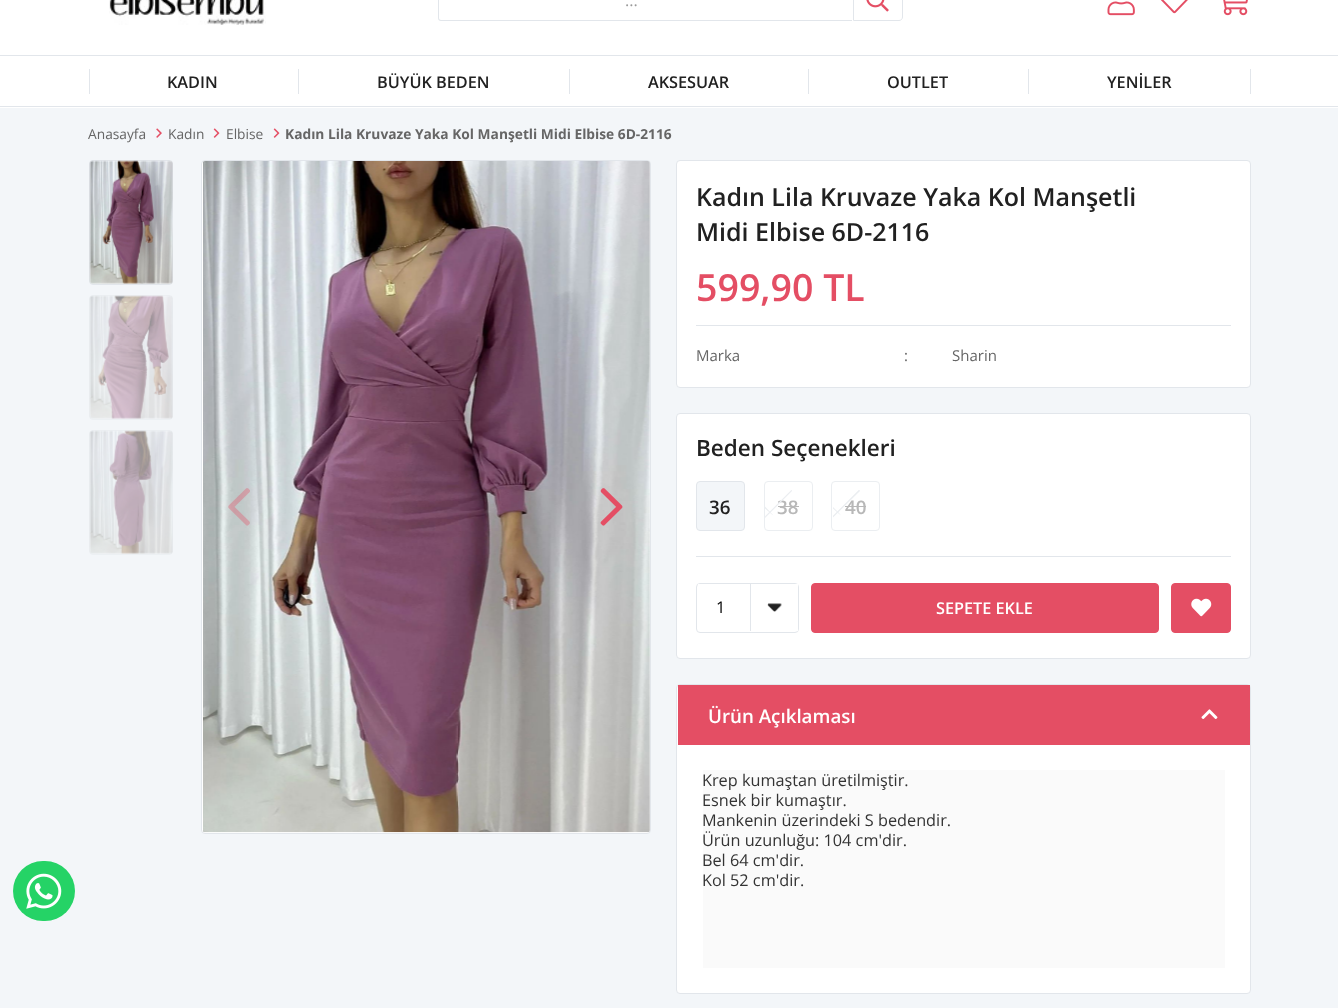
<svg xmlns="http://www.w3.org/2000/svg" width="1338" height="1008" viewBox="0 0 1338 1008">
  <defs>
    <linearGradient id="g1" gradientUnits="userSpaceOnUse" x1="774" y1="506" x2="776" y2="508"><stop offset="0" stop-color="#ebeef1" stop-opacity="0"/><stop offset="0" stop-color="#ebeef1"/><stop offset="0.5" stop-color="#ebeef1"/><stop offset="0.5" stop-color="#ebeef1" stop-opacity="0"/></linearGradient>
    <linearGradient id="g2" gradientUnits="userSpaceOnUse" x1="842" y1="506" x2="844" y2="508"><stop offset="0" stop-color="#ebeef1" stop-opacity="0"/><stop offset="0" stop-color="#ebeef1"/><stop offset="0.5" stop-color="#ebeef1"/><stop offset="0.5" stop-color="#ebeef1" stop-opacity="0"/></linearGradient>
  </defs>
  <rect width="100%" height="100%" fill="#f3f6f9"/>
  <rect x="0" y="0" width="1338" height="108" fill="#ffffff"/>
  <rect x="0" y="55" width="1338" height="1" fill="#e2e6eb"/>
  <image x="109" y="0" width="157" height="25" href="img1.png"/>
  <path d="M441-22H852V21H441C439 21 438 20 438 18V-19C438-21 439-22 441-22ZM441-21H852V20H441C440 20 439 19 439 18V-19C439-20 440-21 441-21Z" fill="#e2e6eb" fill-rule="evenodd"/>
  <text x="625" y="6" font-family="Open Sans" font-size="16.25" fill="#9a9a9a">...</text>
  <path d="M853.5-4.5H899C901-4.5 902.5-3 902.5-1V17C902.5 19 901 20.5 899 20.5H853.5Z" fill="none" stroke="#e2e6eb"/>
  <image x="866" y="0" width="23" height="12" href="img2.png"/>
  <image x="1107" y="1" width="28" height="15" href="img3.png"/>
  <image x="1161" y="0" width="27" height="14" href="img4.png"/>
  <image x="1223" y="0" width="25" height="16" href="img5.png"/>
  <rect x="0" y="106" width="1338" height="1" fill="#e2e6eb"/>
  <rect x="89" y="69" width="1" height="25" fill="#e2e6eb"/>
  <text x="167" y="88" font-family="Open Sans" font-size="16.25" font-weight="600" fill="#212121">KADIN</text>
  <rect x="298" y="69" width="1" height="25" fill="#e2e6eb"/>
  <text x="377" y="88" font-family="Open Sans" font-size="16.25" font-weight="600" fill="#212121">BÜYÜK BEDEN</text>
  <rect x="569" y="69" width="1" height="25" fill="#e2e6eb"/>
  <text x="648" y="88" font-family="Open Sans" font-size="16.25" font-weight="600" fill="#212121">AKSESUAR</text>
  <rect x="808" y="69" width="1" height="25" fill="#e2e6eb"/>
  <text x="887" y="88" font-family="Open Sans" font-size="16.25" font-weight="600" fill="#212121">OUTLET</text>
  <rect x="1028" y="69" width="1" height="25" fill="#e2e6eb"/>
  <text x="1107" y="88" font-family="Open Sans" font-size="16.25" font-weight="600" fill="#212121">YENİLER</text>
  <rect x="1250" y="69" width="1" height="25" fill="#e2e6eb"/>
  <rect x="13" y="861" width="62" height="60" rx="30" fill="#25d366"/>
  <image x="26" y="873" width="36" height="36" href="img6.png"/>
  <text x="88" y="139" font-family="Open Sans" font-size="13.75" fill="#666666">Anasayfa</text>
  <image x="156" y="128" width="6" height="10" href="img7.png"/>
  <text x="168" y="139" font-family="Open Sans" font-size="13.75" fill="#666666">Kadın</text>
  <image x="213" y="128" width="7" height="10" href="img8.png"/>
  <text x="226" y="139" font-family="Open Sans" font-size="13.75" fill="#666666">Elbise</text>
  <image x="273" y="128" width="7" height="10" href="img8.png"/>
  <text x="285" y="139" font-family="Open Sans" font-size="13.75" font-weight="bold" fill="#666666">Kadın Lila Kruvaze Yaka Kol Manşetli Midi Elbise 6D-2116</text>
  <rect x="89.5" y="160.5" width="83" height="124" rx="3.5" fill="none" stroke="#e2e6eb"/>
  <image x="89" y="160" width="84" height="124" href="img9.png"/>
  <rect x="89.5" y="295.5" width="83" height="124" rx="3.5" fill="none" stroke="#ecf0f3"/>
  <image x="89" y="295" width="84" height="124" href="img10.png"/>
  <rect x="89.5" y="430.5" width="83" height="124" rx="3.5" fill="none" stroke="#ecf0f3"/>
  <image x="89" y="430" width="84" height="124" href="img11.png"/>
  <rect x="201.5" y="160.5" width="449" height="673" rx="3.5" fill="#ffffff" stroke="#e2e6eb"/>
  <image x="203" y="161" width="447" height="672" href="img12.png"/>
  <image x="228" y="488" width="22" height="38" href="img13.png"/>
  <image x="600" y="488" width="23" height="38" href="img14.png"/>
  <rect x="676.5" y="160.5" width="574" height="227" rx="3.5" fill="#ffffff" stroke="#e2e6eb"/>
  <text x="696" y="206" font-family="Open Sans" font-size="25" font-weight="600" fill="#212121">Kadın Lila Kruvaze Yaka Kol Manşetli</text>
  <text x="696" y="241" font-family="Open Sans" font-size="25" font-weight="600" fill="#212121">Midi Elbise 6D-2116</text>
  <rect x="696" y="325" width="535" height="1" fill="#e2e6eb"/>
  <text x="696" y="301" font-family="Open Sans" font-size="37.5" font-weight="600" fill="#e44e64">599,90 TL</text>
  <text x="696" y="361" font-family="Open Sans" font-size="15" fill="#666666">Marka</text>
  <text x="904" y="361" font-family="Open Sans" font-size="15" fill="#666666">:</text>
  <text x="952" y="361" font-family="Open Sans" font-size="15" fill="#666666">Sharin</text>
  <rect x="676.5" y="413.5" width="574" height="245" rx="3.5" fill="#ffffff" stroke="#e2e6eb"/>
  <rect x="696" y="556" width="535" height="1" fill="#e2e6eb"/>
  <text x="696" y="456" font-family="Open Sans" font-size="22.5" font-weight="600" fill="#212121">Beden Seçenekleri</text>
  <rect x="696.5" y="481.5" width="48" height="49" rx="3.5" fill="#f3f6f9" stroke="#e2e6eb"/>
  <text x="709" y="514" font-family="Open Sans" font-size="18.75" font-weight="600" fill="#212121">36</text>
  <rect x="764.5" y="481.5" width="48" height="49" rx="3.5" fill="none" stroke="#ebeef1"/>
  <path d="M765 506.5L773.5 515.5L772.5 515L765 508.5Z" fill="#ebeef1"/>
  <text x="777" y="514" font-family="Open Sans" font-size="18.75" font-weight="600" fill="#b8b8b8">38</text>
  <rect x="778" y="506" width="21" height="1" fill="#b8b8b8"/>
  <path d="M765 518V516.5L791.5 490L792 491Z" fill="#ebeef1"/>
  <path d="M765 518V516.5L791.5 490L792 491Z" fill="url(#g1)"/>
  <rect x="831.5" y="481.5" width="48" height="49" rx="3.5" fill="none" stroke="#ebeef1"/>
  <path d="M833 508.5V507L839 513L841 515.5L838.5 513.5Z" fill="#ebeef1"/>
  <text x="845" y="514" font-family="Open Sans" font-size="18.75" font-weight="600" fill="#b8b8b8">40</text>
  <rect x="845" y="506" width="21" height="1" fill="#b8b8b8"/>
  <path d="M833 517.5V516L859 490L860 491Z" fill="#ebeef1"/>
  <path d="M833 517.5V516L859 490L860 491Z" fill="url(#g2)"/>
  <rect x="696.5" y="583.5" width="102" height="49" rx="3.5" fill="none" stroke="#e2e6eb"/>
  <rect x="698" y="584" width="100" height="47" fill="#ffffff"/>
  <image x="750" y="584" width="32" height="47" href="img15.png"/>
  <text x="716" y="613" font-family="Open Sans" font-size="16.25" fill="#000000">1</text>
  <rect x="811.5" y="583.5" width="347" height="49" rx="3.5" fill="#e44e64" stroke="#e44e64"/>
  <text x="936" y="614" font-family="Open Sans" font-size="16.25" font-weight="600" fill="#ffffff">SEPETE EKLE</text>
  <rect x="1171.5" y="583.5" width="59" height="49" rx="3.5" fill="#e44e64" stroke="#e44e64"/>
  <image x="1191" y="598" width="21" height="19" href="img16.png"/>
  <rect x="676.5" y="684.5" width="574" height="309" rx="3.5" fill="#ffffff" stroke="#e2e6eb"/>
  <rect x="678" y="685" width="572" height="60" fill="#e44e64"/>
  <text x="708" y="723" font-family="Open Sans" font-size="18.75" font-weight="600" fill="#ffffff">Ürün Açıklaması</text>
  <image x="1201" y="709" width="17" height="10" href="img17.png"/>
  <rect x="703" y="770" width="522" height="198" fill="#fafafa"/>
  <text x="702" y="786" font-family="Open Sans" font-size="16.25" fill="#333333">Krep kumaştan üretilmiştir.</text>
  <text x="702" y="806" font-family="Open Sans" font-size="16.25" fill="#333333">Esnek bir kumaştır.</text>
  <text x="702" y="826" font-family="Open Sans" font-size="16.25" fill="#333333">Mankenin üzerindeki S bedendir.</text>
  <text x="702" y="846" font-family="Open Sans" font-size="16.25" fill="#333333">Ürün uzunluğu: 104 cm'dir.</text>
  <text x="702" y="866" font-family="Open Sans" font-size="16.25" fill="#333333">Bel 64 cm'dir.</text>
  <text x="702" y="886" font-family="Open Sans" font-size="16.25" fill="#333333">Kol 52 cm'dir.</text>
</svg>
